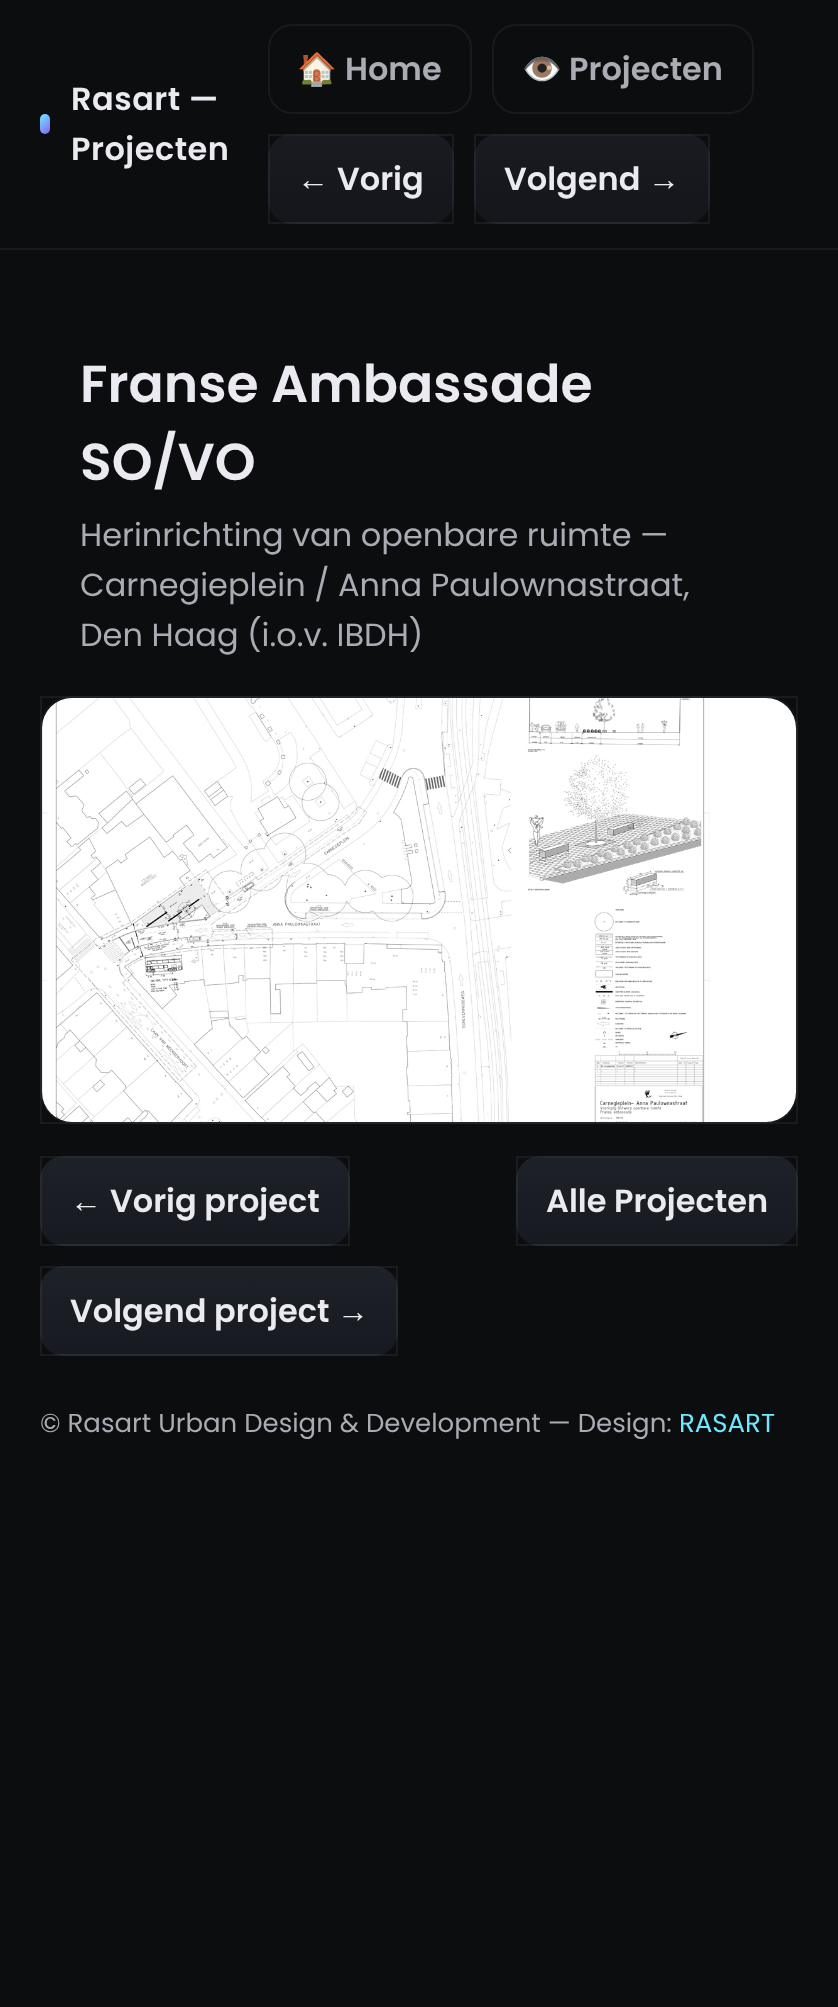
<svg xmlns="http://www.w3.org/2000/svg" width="838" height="2007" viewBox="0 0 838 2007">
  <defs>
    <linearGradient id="g1" gradientUnits="userSpaceOnUse" x1="38" y1="117" x2="53" y2="132"><stop offset="0" stop-color="#6ee7ff"/><stop offset="1" stop-color="#8b5cf6"/></linearGradient>
    <clipPath id="clip1"><rect x="268" y="134" width="186" height="90" rx="24"/></clipPath>
    <linearGradient id="g2" gradientUnits="userSpaceOnUse" x1="361" y1="50" x2="361" y2="136"><stop offset="0" stop-color="#191b21"/><stop offset="1" stop-color="#14161b"/></linearGradient>
    <linearGradient id="g3" gradientUnits="userSpaceOnUse" x1="361" y1="136" x2="361" y2="222"><stop offset="0" stop-color="#191b21"/><stop offset="1" stop-color="#14161b"/></linearGradient>
    <linearGradient id="g4" gradientUnits="userSpaceOnUse" x1="361" y1="222" x2="361" y2="308"><stop offset="0" stop-color="#191b21"/><stop offset="1" stop-color="#14161b"/></linearGradient>
    <clipPath id="clip2"><rect x="474" y="134" width="236" height="90" rx="24"/></clipPath>
    <linearGradient id="g5" gradientUnits="userSpaceOnUse" x1="592" y1="50" x2="592" y2="136"><stop offset="0" stop-color="#191b21"/><stop offset="1" stop-color="#14161b"/></linearGradient>
    <linearGradient id="g6" gradientUnits="userSpaceOnUse" x1="592" y1="136" x2="592" y2="222"><stop offset="0" stop-color="#191b21"/><stop offset="1" stop-color="#14161b"/></linearGradient>
    <linearGradient id="g7" gradientUnits="userSpaceOnUse" x1="592" y1="222" x2="592" y2="308"><stop offset="0" stop-color="#191b21"/><stop offset="1" stop-color="#14161b"/></linearGradient>
    <clipPath id="clip3"><rect x="40" y="1156" width="310" height="90" rx="24"/></clipPath>
    <linearGradient id="g8" gradientUnits="userSpaceOnUse" x1="195" y1="1072" x2="195" y2="1158"><stop offset="0" stop-color="#1d2128"/><stop offset="1" stop-color="#171a20"/></linearGradient>
    <linearGradient id="g9" gradientUnits="userSpaceOnUse" x1="195" y1="1158" x2="195" y2="1244"><stop offset="0" stop-color="#1d2128"/><stop offset="1" stop-color="#171a20"/></linearGradient>
    <linearGradient id="g10" gradientUnits="userSpaceOnUse" x1="195" y1="1244" x2="195" y2="1330"><stop offset="0" stop-color="#1d2128"/><stop offset="1" stop-color="#171a20"/></linearGradient>
    <clipPath id="clip4"><rect x="516" y="1156" width="282" height="90" rx="24"/></clipPath>
    <linearGradient id="g11" gradientUnits="userSpaceOnUse" x1="657" y1="1072" x2="657" y2="1158"><stop offset="0" stop-color="#1d2128"/><stop offset="1" stop-color="#171a20"/></linearGradient>
    <linearGradient id="g12" gradientUnits="userSpaceOnUse" x1="657" y1="1158" x2="657" y2="1244"><stop offset="0" stop-color="#1d2128"/><stop offset="1" stop-color="#171a20"/></linearGradient>
    <linearGradient id="g13" gradientUnits="userSpaceOnUse" x1="657" y1="1244" x2="657" y2="1330"><stop offset="0" stop-color="#1d2128"/><stop offset="1" stop-color="#171a20"/></linearGradient>
    <clipPath id="clip5"><rect x="40" y="1266" width="358" height="90" rx="24"/></clipPath>
    <linearGradient id="g14" gradientUnits="userSpaceOnUse" x1="219" y1="1182" x2="219" y2="1268"><stop offset="0" stop-color="#1d2128"/><stop offset="1" stop-color="#171a20"/></linearGradient>
    <linearGradient id="g15" gradientUnits="userSpaceOnUse" x1="219" y1="1268" x2="219" y2="1354"><stop offset="0" stop-color="#1d2128"/><stop offset="1" stop-color="#171a20"/></linearGradient>
    <linearGradient id="g16" gradientUnits="userSpaceOnUse" x1="219" y1="1354" x2="219" y2="1440"><stop offset="0" stop-color="#1d2128"/><stop offset="1" stop-color="#171a20"/></linearGradient>
  </defs>
  <rect width="100%" height="100%" fill="#0c0d0f"/>
  <rect x="0" y="248" width="838" height="2" fill="#191a1c"/>
  <rect x="40" y="114" width="10" height="20" rx="5" fill="url(#g1)"/>
  <text x="71" y="110" font-family="Poppins" font-size="32" font-weight="600" letter-spacing="0.5" fill="#eaeaf0">Rasart —</text>
  <text x="71" y="160" font-family="Poppins" font-size="32" font-weight="600" letter-spacing="0.5" fill="#eaeaf0">Projecten</text>
  <rect x="269" y="25" width="202" height="88" rx="23" fill="none" stroke="#191a1c" stroke-width="2"/>
  <text x="297" y="80" font-family="Noto Color Emoji" font-size="32" font-weight="bold" fill="#a9acb3">🏠</text>
  <text x="345" y="80" font-family="Poppins" font-size="32" font-weight="600" fill="#a9acb3">Home</text>
  <rect x="493" y="25" width="260" height="88" rx="23" fill="none" stroke="#191a1c" stroke-width="2"/>
  <text x="522" y="80" font-family="Noto Color Emoji" font-size="32" font-weight="bold" fill="#a9acb3">👁️</text>
  <text x="569" y="80" font-family="Poppins" font-size="32" font-weight="600" fill="#a9acb3">Projecten</text>
  <g clip-path="url(#clip1)">
    <rect x="282" y="134" width="158" height="2" fill="url(#g2)"/>
    <rect x="268" y="136" width="186" height="86" fill="url(#g3)"/>
    <rect x="282" y="222" width="158" height="2" fill="url(#g4)"/>
  </g>
  <rect x="269" y="135" width="184" height="88" fill="none" stroke="#ffffff" stroke-opacity="0.06" stroke-width="2"/>
  <text x="297" y="190" font-family="Liberation Sans" font-size="32" font-weight="bold" fill="#eaeaf0">←</text>
  <text x="337" y="190" font-family="Poppins" font-size="32" font-weight="600" fill="#eaeaf0">Vorig</text>
  <g clip-path="url(#clip2)">
    <rect x="488" y="134" width="208" height="2" fill="url(#g5)"/>
    <rect x="474" y="136" width="236" height="86" fill="url(#g6)"/>
    <rect x="488" y="222" width="208" height="2" fill="url(#g7)"/>
  </g>
  <rect x="475" y="135" width="234" height="88" fill="none" stroke="#ffffff" stroke-opacity="0.06" stroke-width="2"/>
  <text x="504" y="190" font-family="Poppins" font-size="32" font-weight="600" fill="#eaeaf0">Volgend</text>
  <text x="648" y="190" font-family="Liberation Sans" font-size="32" font-weight="bold" fill="#eaeaf0">→</text>
  <text x="80" y="402" font-family="Poppins" font-size="52" font-weight="600" fill="#eaeaf0">Franse Ambassade</text>
  <text x="80" y="480" font-family="Poppins" font-size="52" font-weight="600" fill="#eaeaf0">SO/VO</text>
  <text x="80" y="546" font-family="Poppins" font-size="32" fill="#a9acb3">Herinrichting van openbare ruimte —</text>
  <text x="80" y="596" font-family="Poppins" font-size="32" fill="#a9acb3">Carnegieplein / Anna Paulownastraat,</text>
  <text x="80" y="646" font-family="Poppins" font-size="32" fill="#a9acb3">Den Haag (i.o.v. IBDH)</text>
  <rect x="40" y="696" width="758" height="428" rx="32" fill="#15171b"/>
  <rect x="41" y="697" width="756" height="426" fill="none" stroke="#ffffff" stroke-opacity="0.06" stroke-width="2"/>
  <rect x="42" y="698" width="754" height="424" rx="30" fill="#000000"/>
  <image x="42" y="698" width="754" height="424" href="img1.png"/>
  <g clip-path="url(#clip3)">
    <rect x="54" y="1156" width="282" height="2" fill="url(#g8)"/>
    <rect x="40" y="1158" width="310" height="86" fill="url(#g9)"/>
    <rect x="54" y="1244" width="282" height="2" fill="url(#g10)"/>
  </g>
  <rect x="41" y="1157" width="308" height="88" fill="none" stroke="#ffffff" stroke-opacity="0.06" stroke-width="2"/>
  <text x="70" y="1212" font-family="Liberation Sans" font-size="32" font-weight="bold" fill="#eaeaf0">←</text>
  <text x="110" y="1212" font-family="Poppins" font-size="32" font-weight="600" fill="#eaeaf0">Vorig project</text>
  <g clip-path="url(#clip4)">
    <rect x="530" y="1156" width="254" height="2" fill="url(#g11)"/>
    <rect x="516" y="1158" width="282" height="86" fill="url(#g12)"/>
    <rect x="530" y="1244" width="254" height="2" fill="url(#g13)"/>
  </g>
  <rect x="517" y="1157" width="280" height="88" fill="none" stroke="#ffffff" stroke-opacity="0.06" stroke-width="2"/>
  <text x="546" y="1212" font-family="Poppins" font-size="32" font-weight="600" fill="#eaeaf0">Alle Projecten</text>
  <g clip-path="url(#clip5)">
    <rect x="54" y="1266" width="330" height="2" fill="url(#g14)"/>
    <rect x="40" y="1268" width="358" height="86" fill="url(#g15)"/>
    <rect x="54" y="1354" width="330" height="2" fill="url(#g16)"/>
  </g>
  <rect x="41" y="1267" width="356" height="88" fill="none" stroke="#ffffff" stroke-opacity="0.06" stroke-width="2"/>
  <text x="70" y="1322" font-family="Poppins" font-size="32" font-weight="600" fill="#eaeaf0">Volgend project</text>
  <text x="337" y="1322" font-family="Liberation Sans" font-size="32" font-weight="bold" fill="#eaeaf0">→</text>
  <text x="40" y="1432" font-family="Poppins" font-size="26" fill="#a9acb3">© Rasart Urban Design &amp; Development — Design:</text>
  <text x="679" y="1432" font-family="Poppins" font-size="26" fill="#6ee7ff">RASART</text>
</svg>
